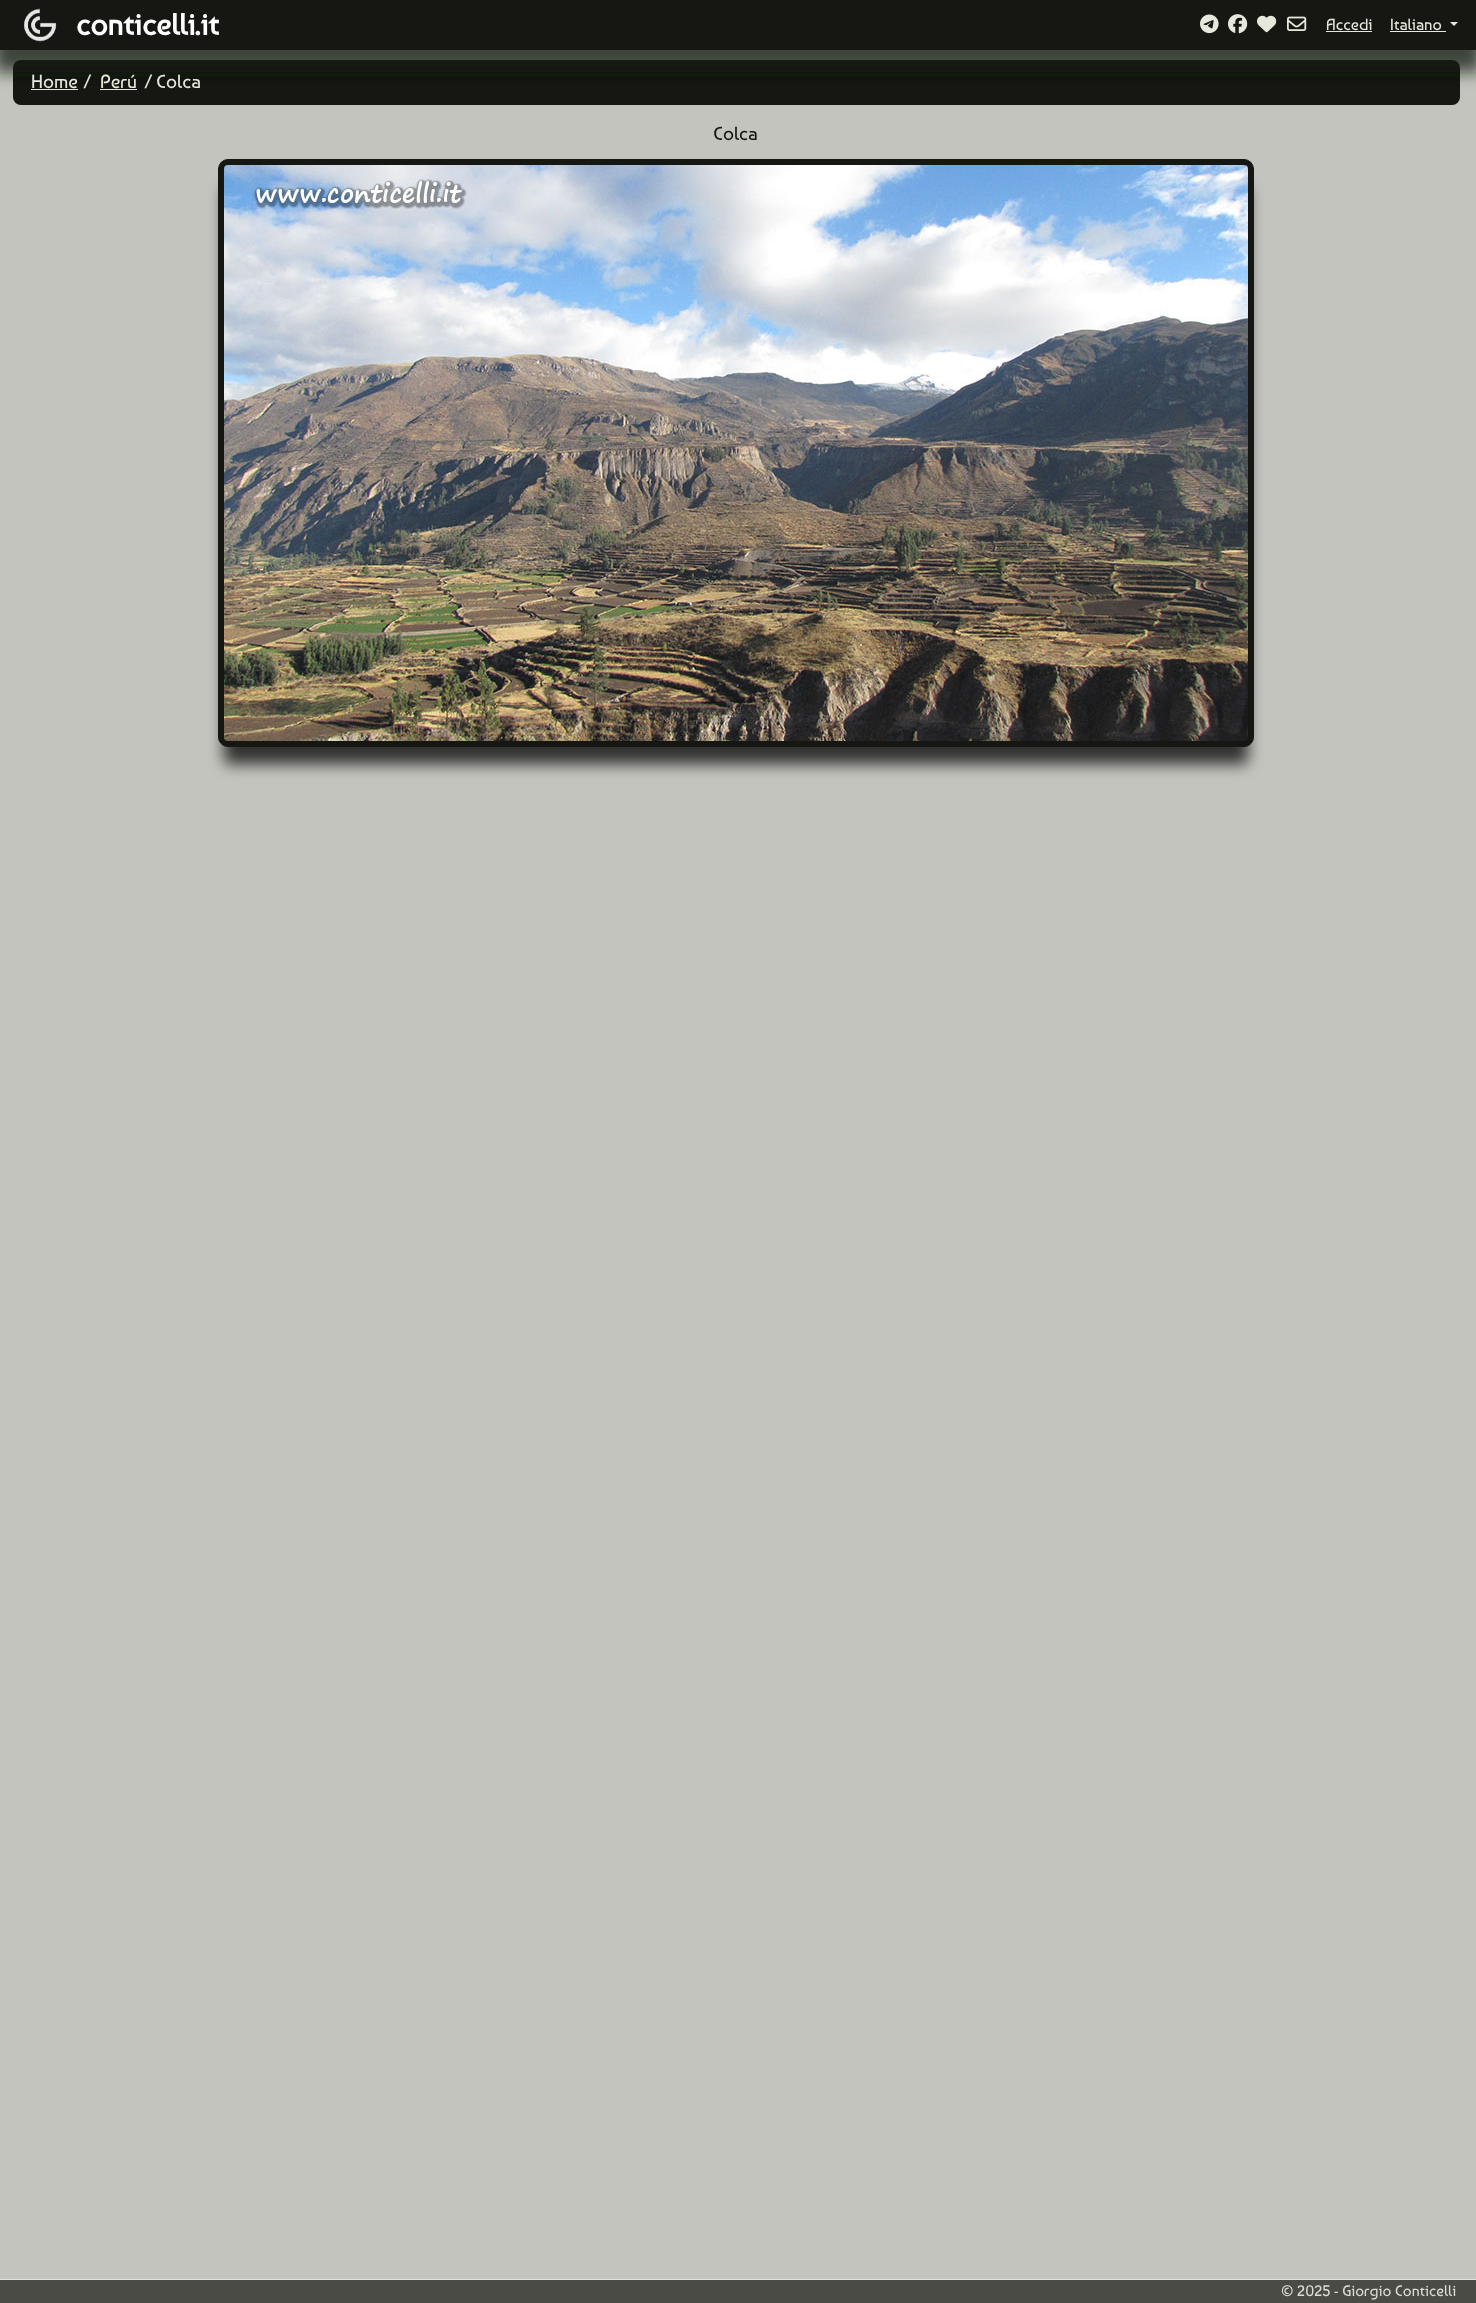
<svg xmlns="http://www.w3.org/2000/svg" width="1476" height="2303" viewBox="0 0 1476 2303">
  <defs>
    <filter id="blur1" x="-50%" y="-200%" width="200%" height="500%"><feGaussianBlur stdDeviation="8"/></filter>
    <filter id="blur2" x="-50%" y="-200%" width="200%" height="500%"><feGaussianBlur stdDeviation="7.5"/></filter>
  </defs>
  <rect width="100%" height="100%" fill="#c3c4bd"/>
  <rect x="13" y="60" width="1447" height="45" rx="8" fill="#161712"/>
  <rect x="31" y="89" width="47" height="1" fill="#e6e8dc"/>
  <rect x="100" y="89" width="37" height="1" fill="#e6e8dc"/>
  <rect x="-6" y="10" width="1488" height="62" fill="#161712" fill-opacity="0.75" filter="url(#blur1)"/>
  <rect x="0" y="0" width="1476" height="50" fill="#161712"/>
  <image x="23" y="8" width="34" height="34" href="img1.png"/>
  <text x="76" y="35" font-family="Baumans" font-size="30" font-weight="bold" fill="#ffffff">conticelli.it</text>
  <image x="1200" y="14" width="19" height="20" href="img2.png"/>
  <image x="1228" y="14" width="20" height="20" href="img3.png"/>
  <image x="1257" y="15" width="20" height="18" href="img4.png"/>
  <image x="1287" y="16" width="20" height="15" href="img5.png"/>
  <text x="1326" y="30" font-family="Baumans" font-size="16" fill="#e6e8dc">Accedi</text>
  <rect x="1326" y="31" width="46" height="1" fill="#e6e8dc"/>
  <text x="1390" y="30" font-family="Baumans" font-size="16" fill="#e6e8dc">Italiano</text>
  <rect x="1390" y="31" width="56" height="1" fill="#e6e8dc"/>
  <path d="M1450 22H1458L1454 26Z" fill="#e6e8dc"/>
  <text x="31" y="88" font-family="Baumans" font-size="19" fill="#e6e8dc">Home</text>
  <text x="84" y="88" font-family="Baumans" font-size="19" fill="#e6e8dc">/</text>
  <text x="100" y="88" font-family="Baumans" font-size="19" fill="#e6e8dc">Perú</text>
  <text x="145" y="88" font-family="Baumans" font-size="19" fill="#e6e8dc">/ Colca</text>
  <text x="713" y="140" font-family="Baumans" font-size="19" fill="#161712">Colca</text>
  <rect x="224" y="188" width="1024" height="576" rx="4" fill="#000000" fill-opacity="0.75" filter="url(#blur2)"/>
  <rect x="218.5" y="159.5" width="1035" height="587" rx="9.5" fill="#161712" stroke="#161712"/>
  <image x="224" y="165" width="1024" height="576" href="img6.png"/>
  <rect x="0" y="2279" width="1476" height="1" fill="#dee2e6"/>
  <rect x="0" y="2280" width="1476" height="23" fill="#4a4b45"/>
  <text x="1281" y="2296" font-family="Baumans" font-size="15.25" fill="#dcddd3">© 2025 - Giorgio Conticelli</text>
</svg>
